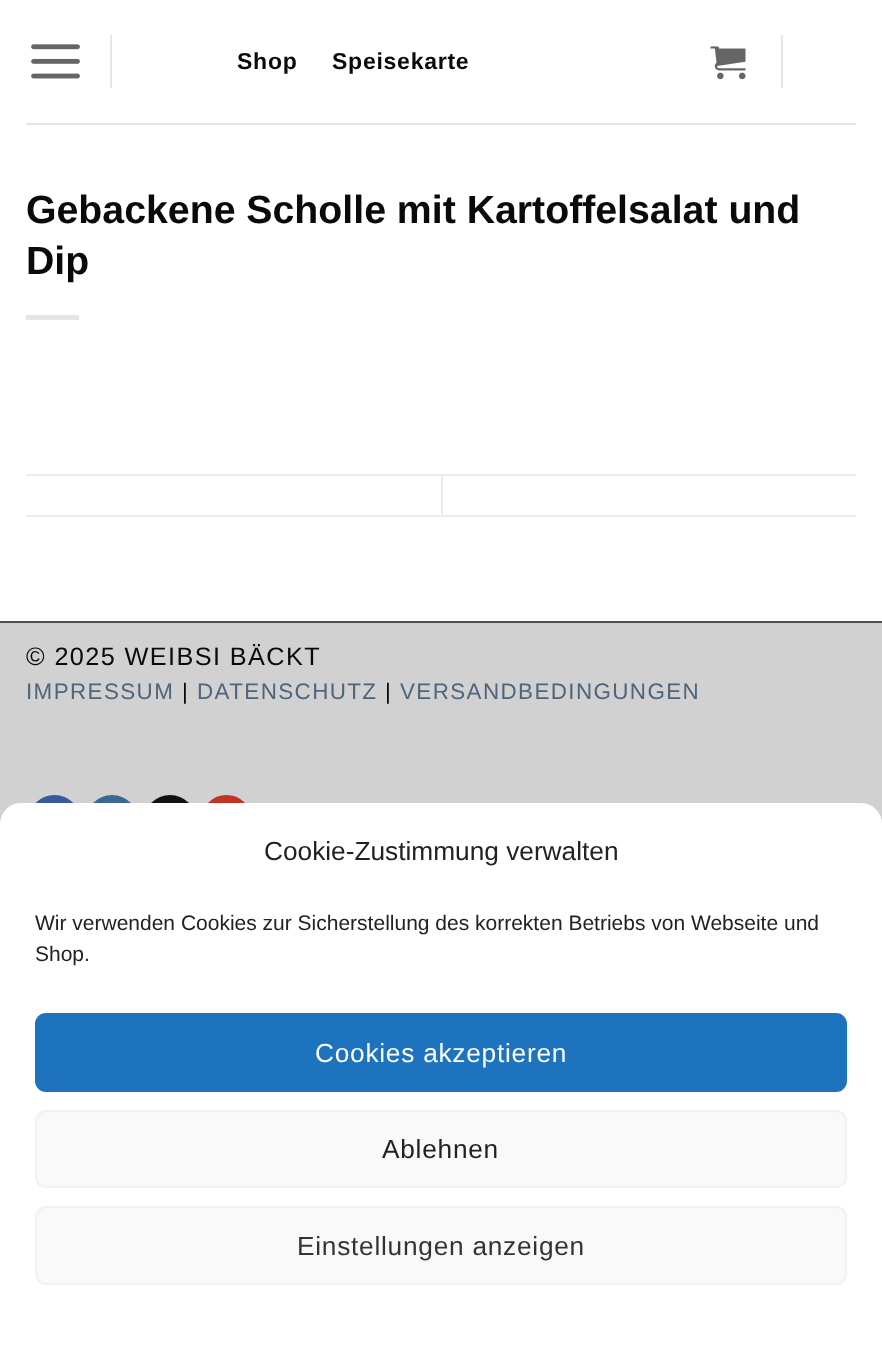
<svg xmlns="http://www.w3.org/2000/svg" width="882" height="1345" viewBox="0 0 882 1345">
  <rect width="100%" height="100%" fill="#ffffff"/>
  <image x="31" y="44" width="49" height="35" href="img1.png"/>
  <rect x="110" y="35" width="2" height="53" fill="#e6e6e6"/>
  <text x="237" y="69" font-family="Liberation Sans" font-size="23" font-weight="bold" letter-spacing="0.75" fill="#0a0a0a">Shop</text>
  <text x="332" y="69" font-family="Liberation Sans" font-size="23" font-weight="bold" letter-spacing="0.75" fill="#0a0a0a">Speisekarte</text>
  <image x="710" y="46" width="36" height="34" href="img2.png"/>
  <rect x="781" y="35" width="2" height="53" fill="#e6e6e6"/>
  <rect x="26" y="123" width="830" height="2" fill="#e7e6e6"/>
  <text x="26" y="223" font-family="Liberation Sans" font-size="39.25" font-weight="bold" fill="#0a0a0a">Gebackene Scholle mit Kartoffelsalat und</text>
  <text x="26" y="274" font-family="Liberation Sans" font-size="39.25" font-weight="bold" fill="#0a0a0a">Dip</text>
  <rect x="26" y="315" width="53" height="5" fill="#e6e6e6"/>
  <rect x="26" y="474" width="830" height="2" fill="#ececec"/>
  <rect x="26" y="515" width="830" height="2" fill="#ececec"/>
  <rect x="441" y="476" width="2" height="39" fill="#ececec"/>
  <rect x="0" y="623" width="882" height="201" fill="#d1d1d1"/>
  <rect x="0" y="621" width="882" height="2" fill="#4f4f4f"/>
  <text x="26" y="665" font-family="Liberation Sans" font-size="25.25" letter-spacing="1.4" fill="#0a0a0a">© 2025 WEIBSI BÄCKT</text>
  <text x="26" y="699" font-family="Liberation Sans" font-size="22.4" letter-spacing="1.4" fill="#4e657b">IMPRESSUM</text>
  <text x="182" y="699" font-family="Liberation Sans" font-size="22.4" letter-spacing="1.4" fill="#0a0a0a">|</text>
  <text x="197" y="699" font-family="Liberation Sans" font-size="22.4" letter-spacing="1.4" fill="#4e657b">DATENSCHUTZ</text>
  <text x="385" y="699" font-family="Liberation Sans" font-size="22.4" letter-spacing="1.4" fill="#0a0a0a">|</text>
  <text x="400" y="699" font-family="Liberation Sans" font-size="22.4" letter-spacing="1.4" fill="#4e657b">VERSANDBEDINGUNGEN</text>
  <rect x="29" y="796" width="51" height="52" rx="25.5" fill="#3a589d" stroke="#3a589d" stroke-width="2"/>
  <rect x="87" y="796" width="50" height="52" rx="25" fill="#3b6994" stroke="#3b6994" stroke-width="2"/>
  <rect x="145" y="796" width="50" height="52" rx="25" fill="#111111" stroke="#111111" stroke-width="2"/>
  <rect x="202" y="796" width="49" height="52" rx="24.5" fill="#c33223" stroke="#c33223" stroke-width="2"/>
  <rect x="0" y="803" width="882" height="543" rx="21" fill="#ffffff"/>
  <text x="264" y="860" font-family="Liberation Sans" font-size="26.25" fill="#222222">Cookie-Zustimmung verwalten</text>
  <text x="35" y="930" font-family="Liberation Sans" font-size="21" fill="#222222">Wir verwenden Cookies zur Sicherstellung des korrekten Betriebs von Webseite und</text>
  <text x="35" y="961" font-family="Liberation Sans" font-size="21" fill="#222222">Shop.</text>
  <rect x="36" y="1014" width="810" height="77" rx="10" fill="#1e73be" stroke="#1e73be" stroke-width="2"/>
  <text x="315" y="1062" font-family="Liberation Sans" font-size="26.25" letter-spacing="0.75" fill="#ffffff">Cookies akzeptieren</text>
  <rect x="36" y="1111" width="810" height="76" rx="10" fill="#f9f9f9" stroke="#f2f2f2" stroke-width="2"/>
  <text x="382" y="1158" font-family="Liberation Sans" font-size="26.25" letter-spacing="0.75" fill="#222222">Ablehnen</text>
  <rect x="36" y="1207" width="810" height="77" rx="10" fill="#f9f9f9" stroke="#f2f2f2" stroke-width="2"/>
  <text x="297" y="1255" font-family="Liberation Sans" font-size="26.25" letter-spacing="0.75" fill="#333333">Einstellungen anzeigen</text>
</svg>
